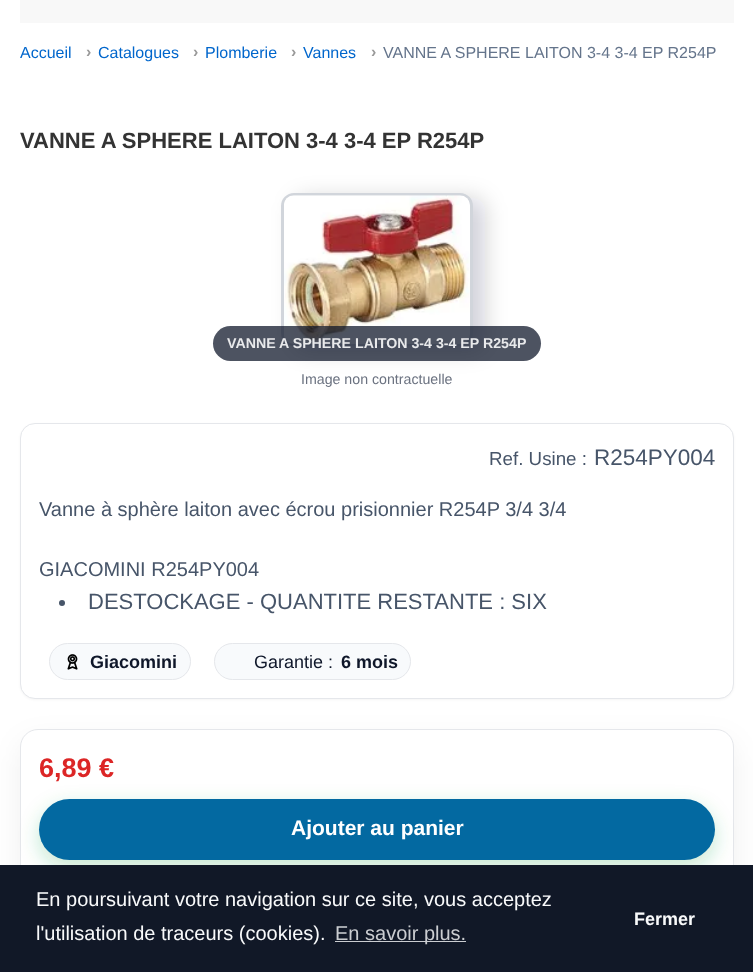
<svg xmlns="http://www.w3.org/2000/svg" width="753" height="972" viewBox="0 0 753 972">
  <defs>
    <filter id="blur1" x="-50%" y="-200%" width="200%" height="500%"><feGaussianBlur stdDeviation="11"/></filter>
    <filter id="blur2" x="-50%" y="-200%" width="200%" height="500%"><feGaussianBlur stdDeviation="1"/></filter>
    <filter id="blur3" x="-50%" y="-200%" width="200%" height="500%"><feGaussianBlur stdDeviation="15"/></filter>
    <filter id="blur4" x="-50%" y="-200%" width="200%" height="500%"><feGaussianBlur stdDeviation="10"/></filter>
  </defs>
  <rect width="100%" height="100%" fill="#ffffff"/>
  <rect x="20" y="0" width="714" height="23" fill="#f8f8f8"/>
  <text x="20" y="58" font-family="Liberation Sans" font-size="16" fill="#0066cc">Accueil</text>
  <text x="86" y="57" font-family="Liberation Sans" font-size="16" font-weight="bold" fill="#999999">›</text>
  <text x="98" y="58" font-family="Liberation Sans" font-size="16" fill="#0066cc">Catalogues</text>
  <text x="193" y="57" font-family="Liberation Sans" font-size="16" font-weight="bold" fill="#999999">›</text>
  <text x="205" y="58" font-family="Liberation Sans" font-size="16" fill="#0066cc">Plomberie</text>
  <text x="291" y="57" font-family="Liberation Sans" font-size="16" font-weight="bold" fill="#999999">›</text>
  <text x="303" y="58" font-family="Liberation Sans" font-size="16" fill="#0066cc">Vannes</text>
  <text x="371" y="57" font-family="Liberation Sans" font-size="16" font-weight="bold" fill="#999999">›</text>
  <text x="383" y="58" font-family="Liberation Sans" font-size="16" fill="#64748b">VANNE A SPHERE LAITON 3-4 3-4 EP R254P</text>
  <text x="20" y="148" font-family="Liberation Sans" font-size="22" font-weight="bold" fill="#333333">VANNE A SPHERE LAITON 3-4 3-4 EP R254P</text>
  <rect x="294" y="198" width="191" height="153" rx="13" fill="#0f172a" fill-opacity="0.18" filter="url(#blur1)"/>
  <rect x="282.5" y="194.5" width="189" height="150" rx="11.5" fill="none" stroke="#d1d5db" stroke-width="3"/>
  <image x="284" y="195" width="186" height="149" href="img1.png"/>
  <rect x="213" y="326" width="328" height="35" rx="17.5" fill="#0f172a" fill-opacity="0.74"/>
  <text x="227" y="348" font-family="Liberation Sans" font-size="14.2" font-weight="bold" fill="#e8e9eb">VANNE A SPHERE LAITON 3-4 3-4 EP R254P</text>
  <text x="301" y="384" font-family="Liberation Sans" font-size="14.2" fill="#6b7280">Image non contractuelle</text>
  <rect x="20" y="424" width="714" height="276" rx="15" fill="#000000" fill-opacity="0.04" filter="url(#blur2)"/>
  <rect x="20.5" y="423.5" width="713" height="275" rx="14.5" fill="#ffffff" stroke="#e5e7eb"/>
  <text x="489" y="465" font-family="Liberation Sans" font-size="18.75" fill="#475569">Ref. Usine :</text>
  <text x="594" y="465" font-family="Liberation Sans" font-size="22.5" fill="#475569">R254PY004</text>
  <text x="39" y="516" font-family="Liberation Sans" font-size="20" fill="#475569">Vanne à sphère laiton avec écrou prisionnier R254P 3/4 3/4</text>
  <text x="39" y="576" font-family="Liberation Sans" font-size="20" fill="#475569">GIACOMINI R254PY004</text>
  <circle cx="62" cy="603" r="3" fill="#475569"/>
  <text x="88" y="609" font-family="Liberation Sans" font-size="22" fill="#475569">DESTOCKAGE - QUANTITE RESTANTE : SIX</text>
  <rect x="49.5" y="643.5" width="141" height="36" rx="18" fill="#f8fafc" stroke="#e5e7eb"/>
  <image x="67" y="654" width="11" height="16" href="img2.png"/>
  <text x="90" y="668" font-family="Liberation Sans" font-size="18" font-weight="bold" fill="#0f172a">Giacomini</text>
  <rect x="214.5" y="643.5" width="196" height="36" rx="18" fill="#f8fafc" stroke="#e5e7eb"/>
  <text x="254" y="668" font-family="Liberation Sans" font-size="18" fill="#0f172a">Garantie :</text>
  <text x="341" y="668" font-family="Liberation Sans" font-size="18" font-weight="bold" fill="#0f172a">6 mois</text>
  <rect x="20" y="741" width="714" height="208" rx="18" fill="#022033" fill-opacity="0.06" filter="url(#blur3)"/>
  <rect x="20.5" y="729.5" width="713" height="206" rx="17.5" fill="#ffffff" stroke="#e5e7eb"/>
  <text x="39" y="777" font-family="Liberation Sans" font-size="27" font-weight="bold" fill="#dc2626">6,89 €</text>
  <rect x="39" y="806" width="676" height="62" rx="31" fill="#16a34a" fill-opacity="0.25" filter="url(#blur4)"/>
  <rect x="39" y="799" width="676" height="61" rx="30.5" fill="#0369a1"/>
  <text x="291" y="835" font-family="Liberation Sans" font-size="21" font-weight="bold" fill="#ffffff">Ajouter au panier</text>
  <rect x="0" y="865" width="753" height="107" fill="#111827"/>
  <text x="36" y="906" font-family="Liberation Sans" font-size="20" fill="#f9fafb">En poursuivant votre navigation sur ce site, vous acceptez</text>
  <text x="36" y="940" font-family="Liberation Sans" font-size="20" fill="#f9fafb">l'utilisation de traceurs (cookies).</text>
  <rect x="335" y="941" width="131" height="1" fill="#cbcdd1"/>
  <text x="335" y="940" font-family="Liberation Sans" font-size="20" fill="#cbcdd1">En savoir plus.</text>
  <text x="634" y="925" font-family="Liberation Sans" font-size="18" font-weight="bold" fill="#f9fafb">Fermer</text>
</svg>
